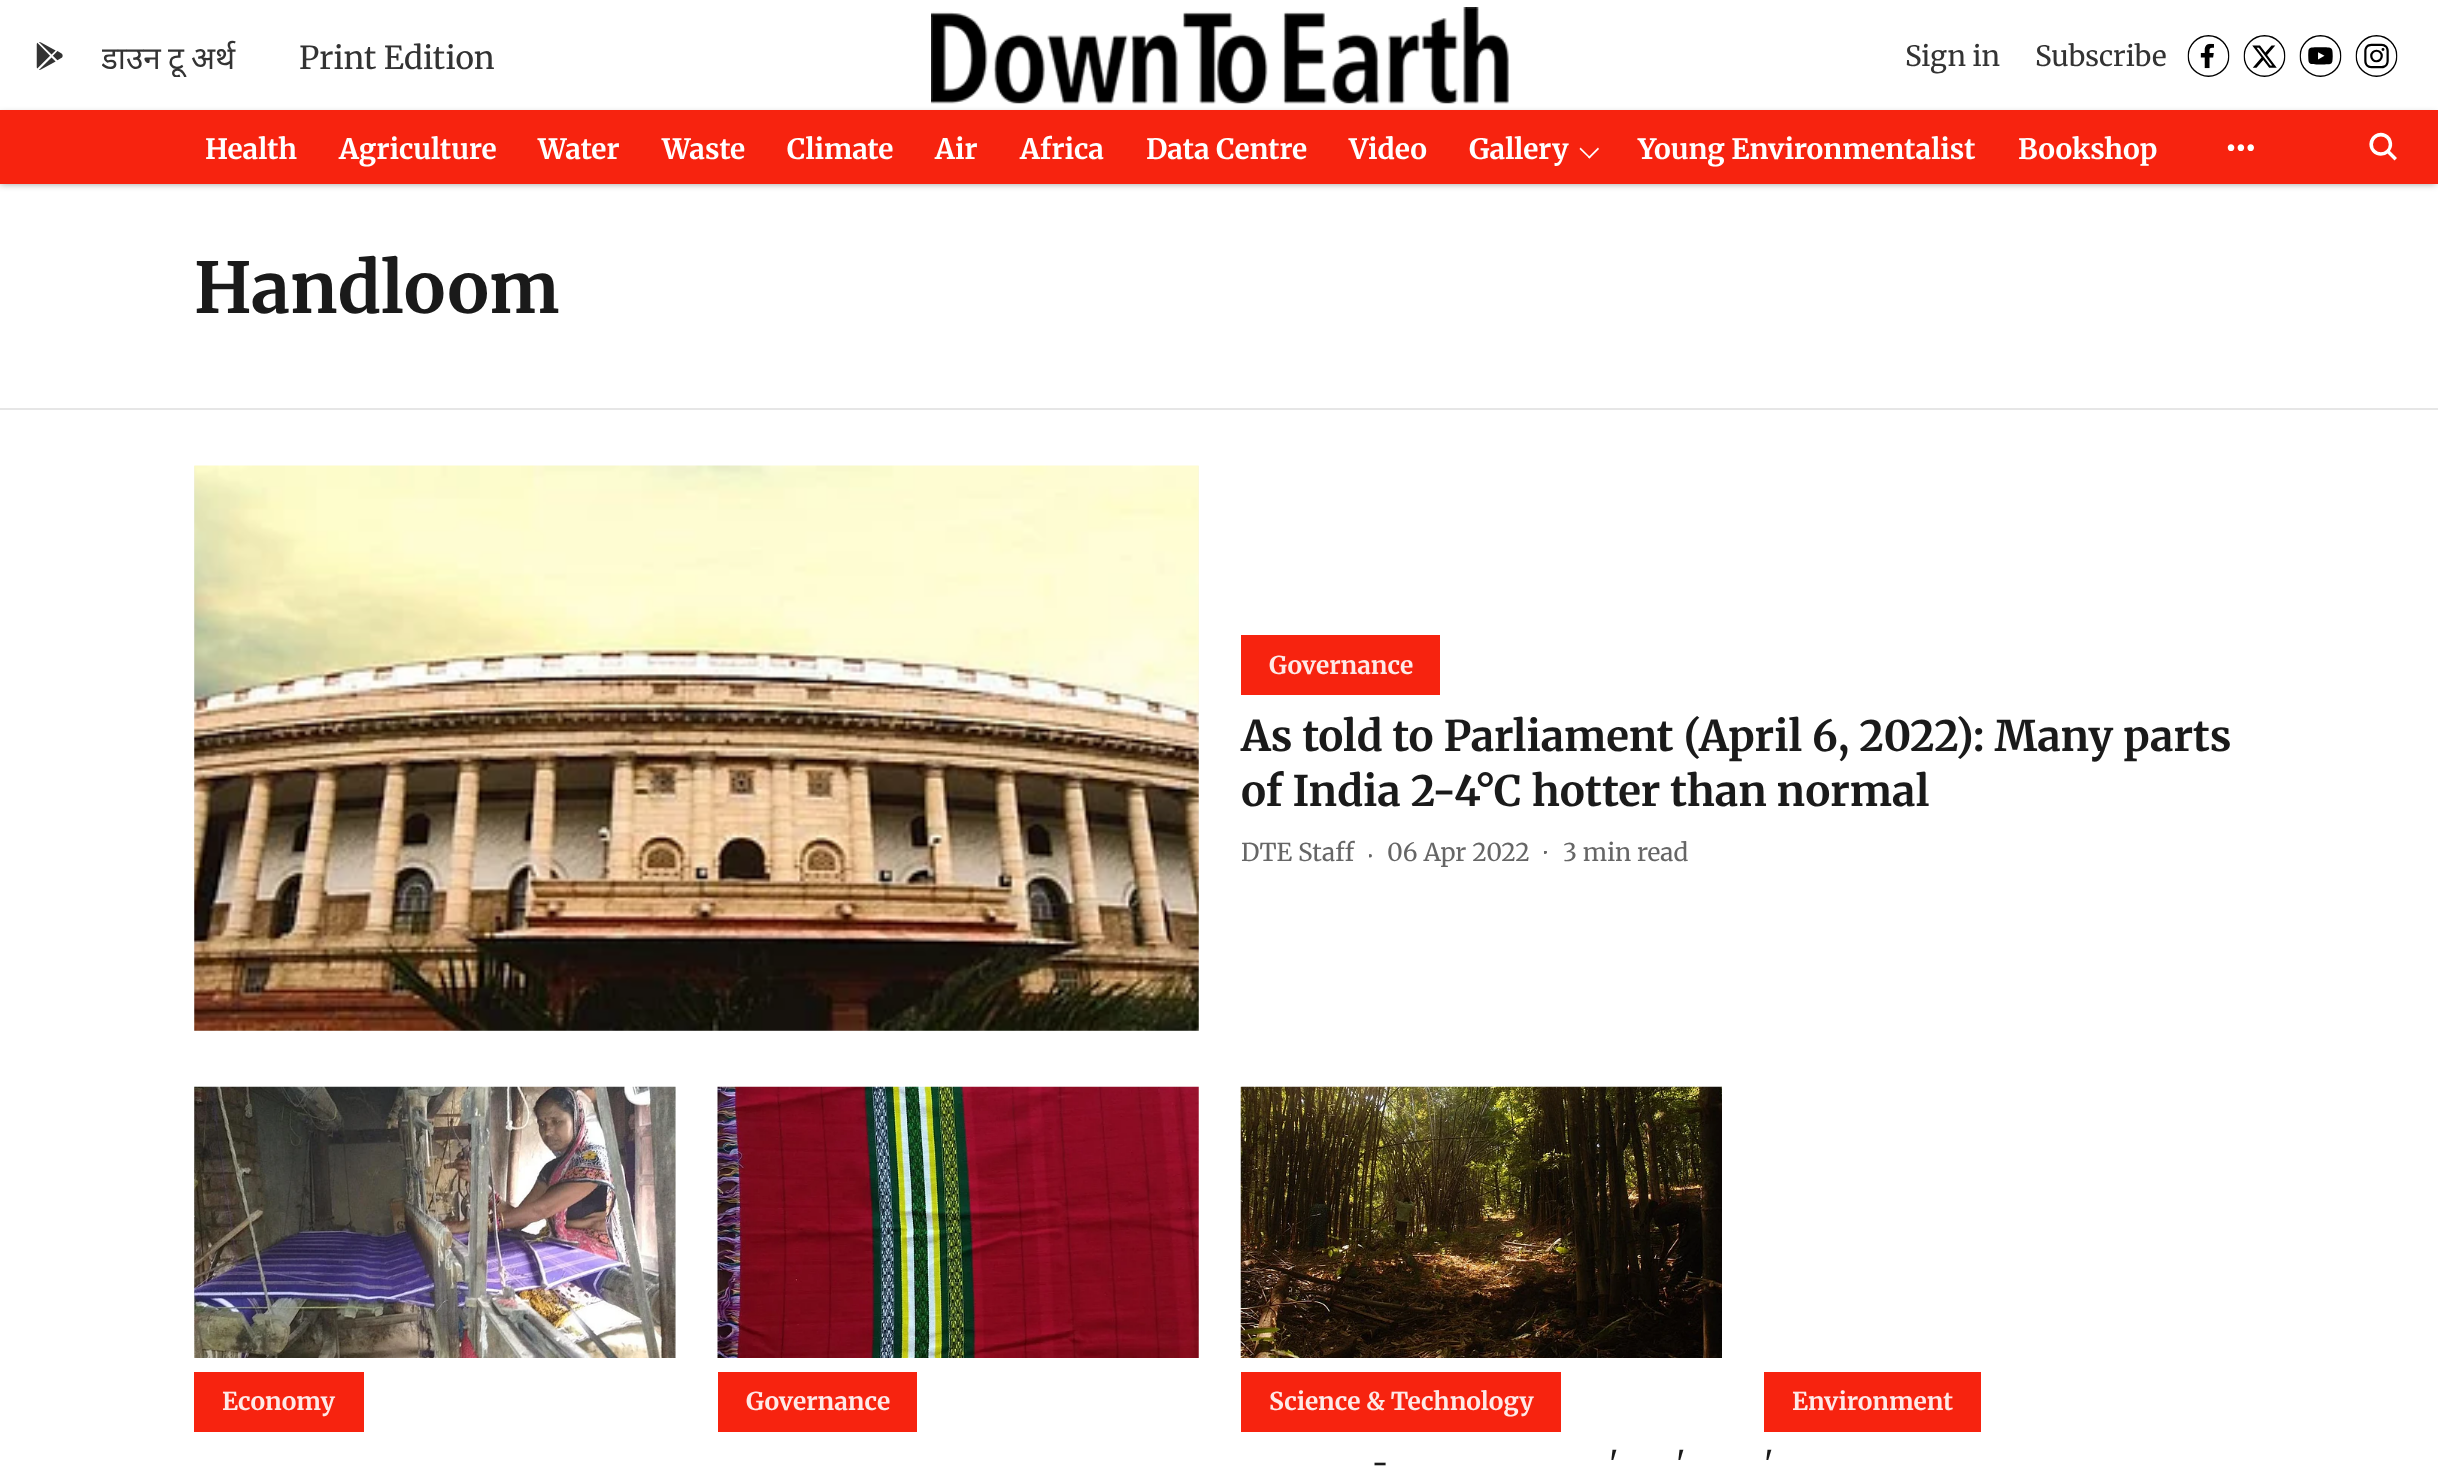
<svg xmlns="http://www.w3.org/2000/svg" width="2438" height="1467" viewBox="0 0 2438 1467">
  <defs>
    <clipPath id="clip1"><rect x="102" y="35" width="801" height="42"/></clipPath>
    <filter id="blur1" x="-50%" y="-200%" width="200%" height="500%"><feGaussianBlur stdDeviation="3.5"/></filter>
    <clipPath id="clip2"><rect x="1369" y="854" width="5" height="5"/></clipPath>
    <clipPath id="clip3"><rect x="1544" y="851" width="5" height="5"/></clipPath>
  </defs>
  <rect width="100%" height="100%" fill="#ffffff"/>
  <image x="36" y="42" width="27" height="28" href="img1.png"/>
  <g clip-path="url(#clip1)">
    <text x="101" y="69" word-spacing="-1" font-family="Noto Sans" font-size="31.5" fill="#333333">डाउन टू अर्थ</text>
  </g>
  <text x="299" y="69" font-family="Merriweather" font-size="31.5" font-weight="300" fill="#333333">Print Edition</text>
  <image x="931" y="7" width="578" height="97" href="img2.png"/>
  <text x="1905" y="66" font-family="Merriweather" font-size="28" font-weight="300" fill="#333333">Sign in</text>
  <text x="2035" y="66" font-family="Merriweather" font-size="28" font-weight="300" fill="#333333">Subscribe</text>
  <image x="2187" y="35" width="43" height="42" href="img3.png"/>
  <image x="2243" y="35" width="43" height="42" href="img4.png"/>
  <image x="2299" y="35" width="43" height="42" href="img5.png"/>
  <image x="2355" y="35" width="43" height="42" href="img6.png"/>
  <rect x="0" y="114" width="2436" height="70" fill="#000000" fill-opacity="0.39" filter="url(#blur1)"/>
  <rect x="0" y="110" width="2438" height="74" fill="#f7230f"/>
  <text x="205" y="159" font-family="'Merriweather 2'" font-size="28" font-weight="300" fill="#ffffff">Health</text>
  <text x="339" y="159" font-family="'Merriweather 2'" font-size="28" font-weight="300" fill="#ffffff">Agriculture</text>
  <text x="538" y="159" font-family="'Merriweather 2'" font-size="28" font-weight="300" fill="#ffffff">Water</text>
  <text x="662" y="159" font-family="'Merriweather 2'" font-size="28" font-weight="300" fill="#ffffff">Waste</text>
  <text x="787" y="159" font-family="'Merriweather 2'" font-size="28" font-weight="300" fill="#ffffff">Climate</text>
  <text x="935" y="159" font-family="'Merriweather 2'" font-size="28" font-weight="300" fill="#ffffff">Air</text>
  <text x="1020" y="159" font-family="'Merriweather 2'" font-size="28" font-weight="300" fill="#ffffff">Africa</text>
  <text x="1146" y="159" font-family="'Merriweather 2'" font-size="28" font-weight="300" fill="#ffffff">Data Centre</text>
  <text x="1349" y="159" font-family="'Merriweather 2'" font-size="28" font-weight="300" fill="#ffffff">Video</text>
  <text x="1469" y="159" font-family="'Merriweather 2'" font-size="28" font-weight="300" fill="#ffffff">Gallery</text>
  <path d="M1598 147.5L1599 149L1589.5 158.5L1588 157.5Z" fill="#ffffff"/>
  <path d="M1580.5 147.5L1590.5 157.5L1589.5 158.5L1579.5 149Z" fill="#ffffff"/>
  <text x="1638" y="159" font-family="'Merriweather 2'" font-size="28" font-weight="300" fill="#ffffff">Young Environmentalist</text>
  <text x="2018" y="159" font-family="'Merriweather 2'" font-size="28" font-weight="300" fill="#ffffff">Bookshop</text>
  <image x="2227" y="144" width="27" height="7" href="img7.png"/>
  <image x="2369" y="132" width="28" height="29" href="img8.png"/>
  <rect x="0" y="408" width="2438" height="2" fill="#e6e6e6"/>
  <text x="194" y="313" font-family="'Merriweather 2'" font-size="70" font-weight="300" fill="#1a1a1a">Handloom</text>
  <rect x="194" y="466" width="1005" height="565" fill="#f0f0f0"/>
  <image x="194" y="465" width="1005" height="566" href="img9.png"/>
  <rect x="1241" y="635" width="199" height="60" fill="#f7230f"/>
  <text x="1269" y="674" font-family="'Merriweather 2'" font-size="24.5" font-weight="300" fill="#fee9e7">Governance</text>
  <text x="1241" y="751" font-family="'Merriweather 2'" font-size="42" font-weight="300" fill="#1a1a1a">As told to Parliament (April 6, 2022): Many parts</text>
  <text x="1241" y="806" font-family="'Merriweather 2'" font-size="42" font-weight="300" fill="#1a1a1a">of India 2-4°C hotter than normal</text>
  <text x="1241" y="861" font-family="Merriweather" font-size="24.5" font-weight="300" fill="#666666">DTE Staff</text>
  <g clip-path="url(#clip2)">
    <circle cx="1370.2" cy="855.8" r="1.8" fill="#666666"/>
  </g>
  <text x="1387" y="861" font-family="Merriweather" font-size="24.5" font-weight="300" fill="#666666">06 Apr 2022</text>
  <g clip-path="url(#clip3)">
    <circle cx="1545.2" cy="852.2" r="1.8" fill="#666666"/>
  </g>
  <text x="1563" y="861" font-family="Merriweather" font-size="24.5" font-weight="300" fill="#666666">3 min read</text>
  <rect x="194" y="1087" width="482" height="271" fill="#f0f0f0"/>
  <image x="194" y="1086" width="482" height="272" href="img10.png"/>
  <rect x="194" y="1372" width="170" height="60" fill="#f7230f"/>
  <text x="222" y="1410" font-family="'Merriweather 2'" font-size="24.5" font-weight="300" fill="#fee9e7">Economy</text>
  <image x="717" y="1086" width="482" height="272" href="img11.png"/>
  <rect x="718" y="1372" width="199" height="60" fill="#f7230f"/>
  <text x="746" y="1410" font-family="'Merriweather 2'" font-size="24.5" font-weight="300" fill="#fee9e7">Governance</text>
  <image x="1240" y="1086" width="482" height="272" href="img12.png"/>
  <rect x="1241" y="1372" width="320" height="60" fill="#f7230f"/>
  <text x="1269" y="1410" font-family="'Merriweather 2'" font-size="24.5" font-weight="300" fill="#fee9e7">Science &amp; Technology</text>
  <text x="1609" y="1473" font-family="'Merriweather 2'" font-size="28" font-weight="300" fill="#1a1a1a">'</text>
  <text x="1676" y="1473" font-family="'Merriweather 2'" font-size="28" font-weight="300" fill="#1a1a1a">'</text>
  <text x="1372" y="1473" font-family="'Merriweather 2'" font-size="28" font-weight="300" fill="#1a1a1a">-</text>
  <rect x="1764" y="1372" width="217" height="60" fill="#f7230f"/>
  <text x="1792" y="1410" font-family="'Merriweather 2'" font-size="24.5" font-weight="300" fill="#fee9e7">Environment</text>
  <text x="1764" y="1473" font-family="'Merriweather 2'" font-size="28" font-weight="300" fill="#1a1a1a">'</text>
</svg>
